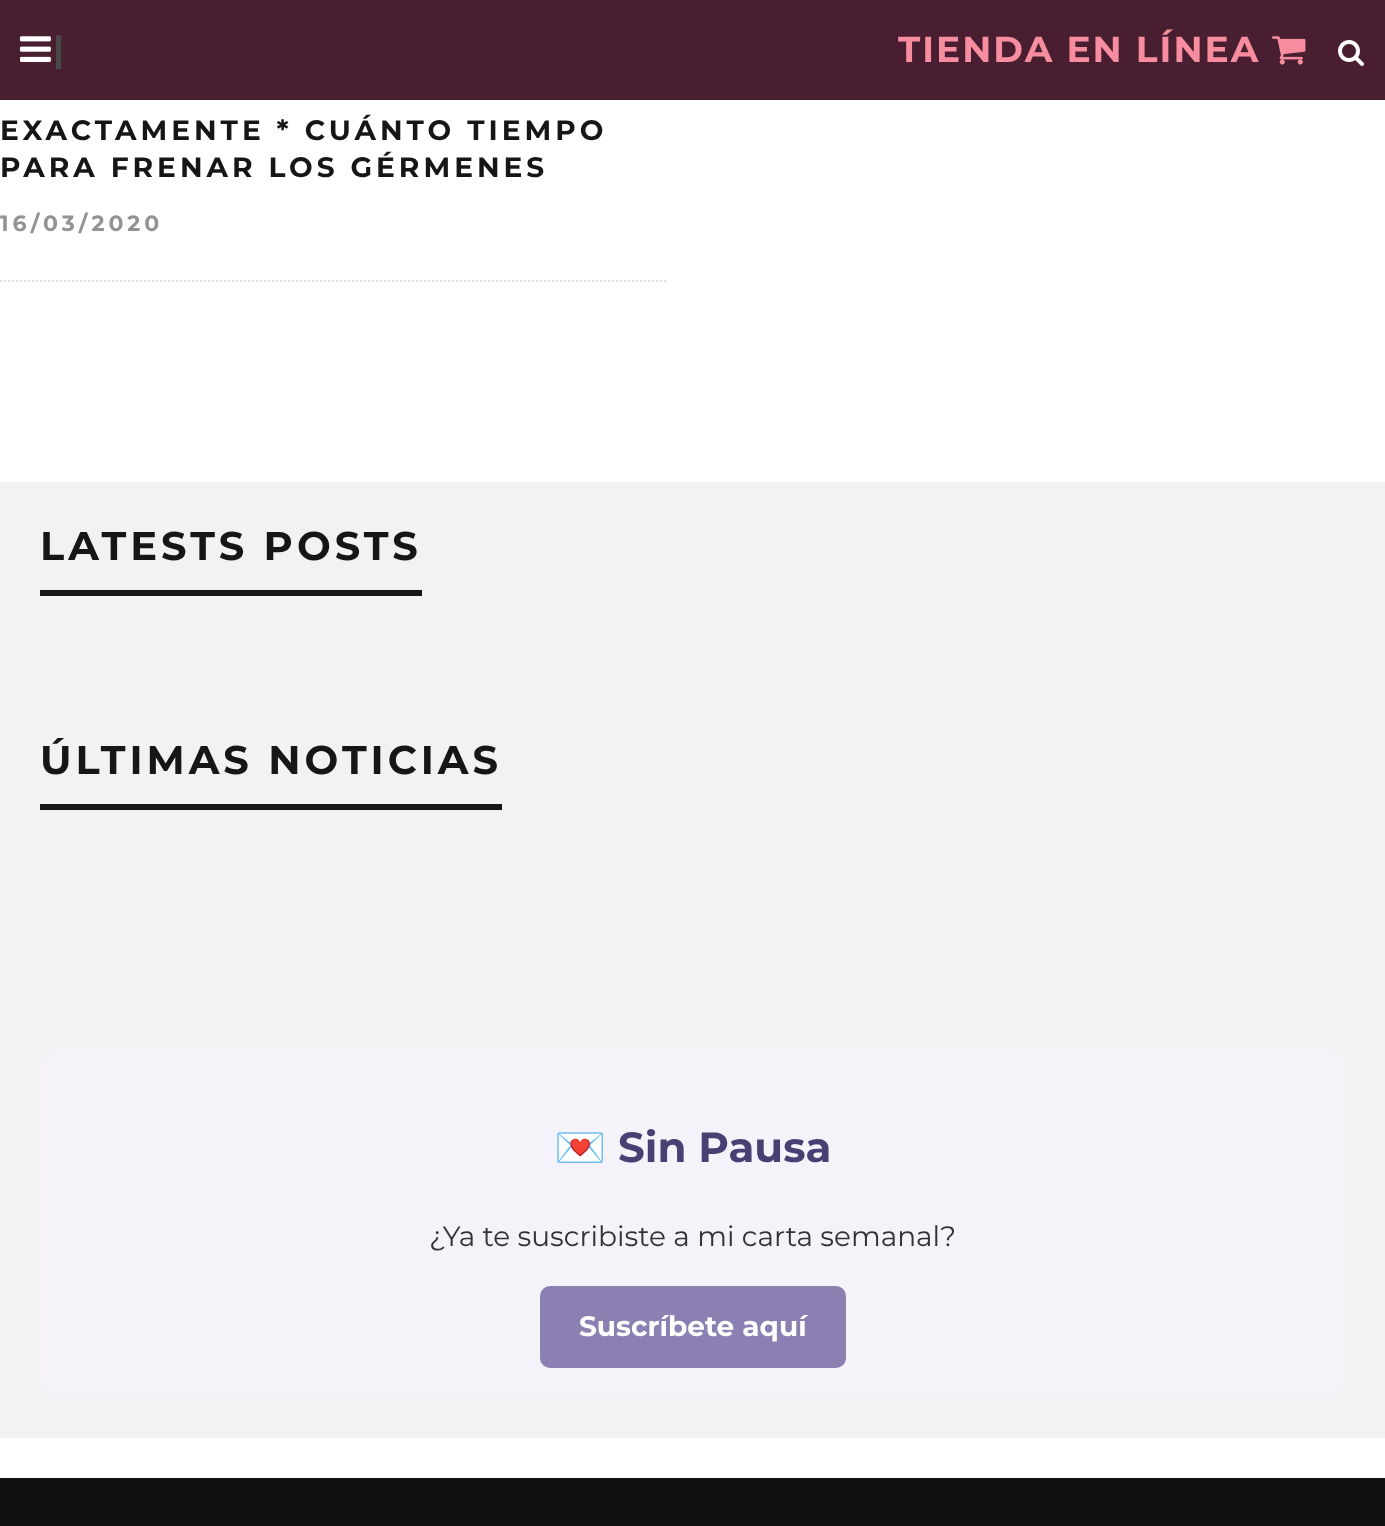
<svg xmlns="http://www.w3.org/2000/svg" width="1385" height="1526" viewBox="0 0 1385 1526">
  <rect width="100%" height="100%" fill="#ffffff"/>
  <rect x="0" y="0" width="1385" height="100" fill="#491e31"/>
  <image x="20" y="36" width="31" height="26" href="img1.png"/>
  <text x="53" y="62" font-family="Montserrat" font-size="36" font-weight="bold" letter-spacing="2" fill="#484848">|</text>
  <text x="898" y="62" font-family="Montserrat" font-size="36" font-weight="bold" letter-spacing="2" fill="#f78d9f">TIENDA EN LÍNEA</text>
  <image x="1272" y="36" width="34" height="29" href="img2.png"/>
  <image x="1338" y="40" width="26" height="26" href="img3.png"/>
  <path d="M0 281H666" fill="none" stroke="#dddddd" stroke-width="2" stroke-dasharray="2 2"/>
  <text x="0" y="140" font-family="Montserrat" font-size="28" font-weight="bold" letter-spacing="4" fill="#161616">EXACTAMENTE * CUÁNTO TIEMPO</text>
  <text x="0" y="177" font-family="Montserrat" font-size="28" font-weight="bold" letter-spacing="4" fill="#161616">PARA FRENAR LOS GÉRMENES</text>
  <text x="0" y="231" font-family="Montserrat" font-size="22" font-weight="bold" letter-spacing="4" fill="#939393">16/03/2020</text>
  <rect x="0" y="482" width="1385" height="956" fill="#f2f2f2"/>
  <rect x="40" y="590" width="382" height="6" fill="#161616"/>
  <text x="40" y="560" font-family="Montserrat" font-size="40" font-weight="bold" letter-spacing="4" fill="#161616">LATESTS POSTS</text>
  <rect x="40" y="804" width="462" height="6" fill="#161616"/>
  <text x="40" y="774" font-family="Montserrat" font-size="40" font-weight="bold" letter-spacing="4" fill="#161616">ÚLTIMAS NOTICIAS</text>
  <rect x="40" y="1048" width="1306" height="350" rx="20" fill="#f5f2fa"/>
  <text x="554" y="1162" font-family="Noto Color Emoji" font-size="42" font-weight="bold" fill="#4a3f72">💌</text>
  <text x="618" y="1162" font-family="Montserrat" font-size="42" font-weight="bold" fill="#4a3f72">Sin Pausa</text>
  <text x="429" y="1246" font-family="Montserrat" font-size="28" fill="#333333">¿Ya te suscribiste a mi carta semanal?</text>
  <rect x="540" y="1286" width="306" height="82" rx="10" fill="#8c7fb1"/>
  <text x="579" y="1336" font-family="Montserrat" font-size="28" font-weight="bold" fill="#ffffff">Suscríbete aquí</text>
  <rect x="0" y="1478" width="1385" height="48" fill="#10100f"/>
</svg>
